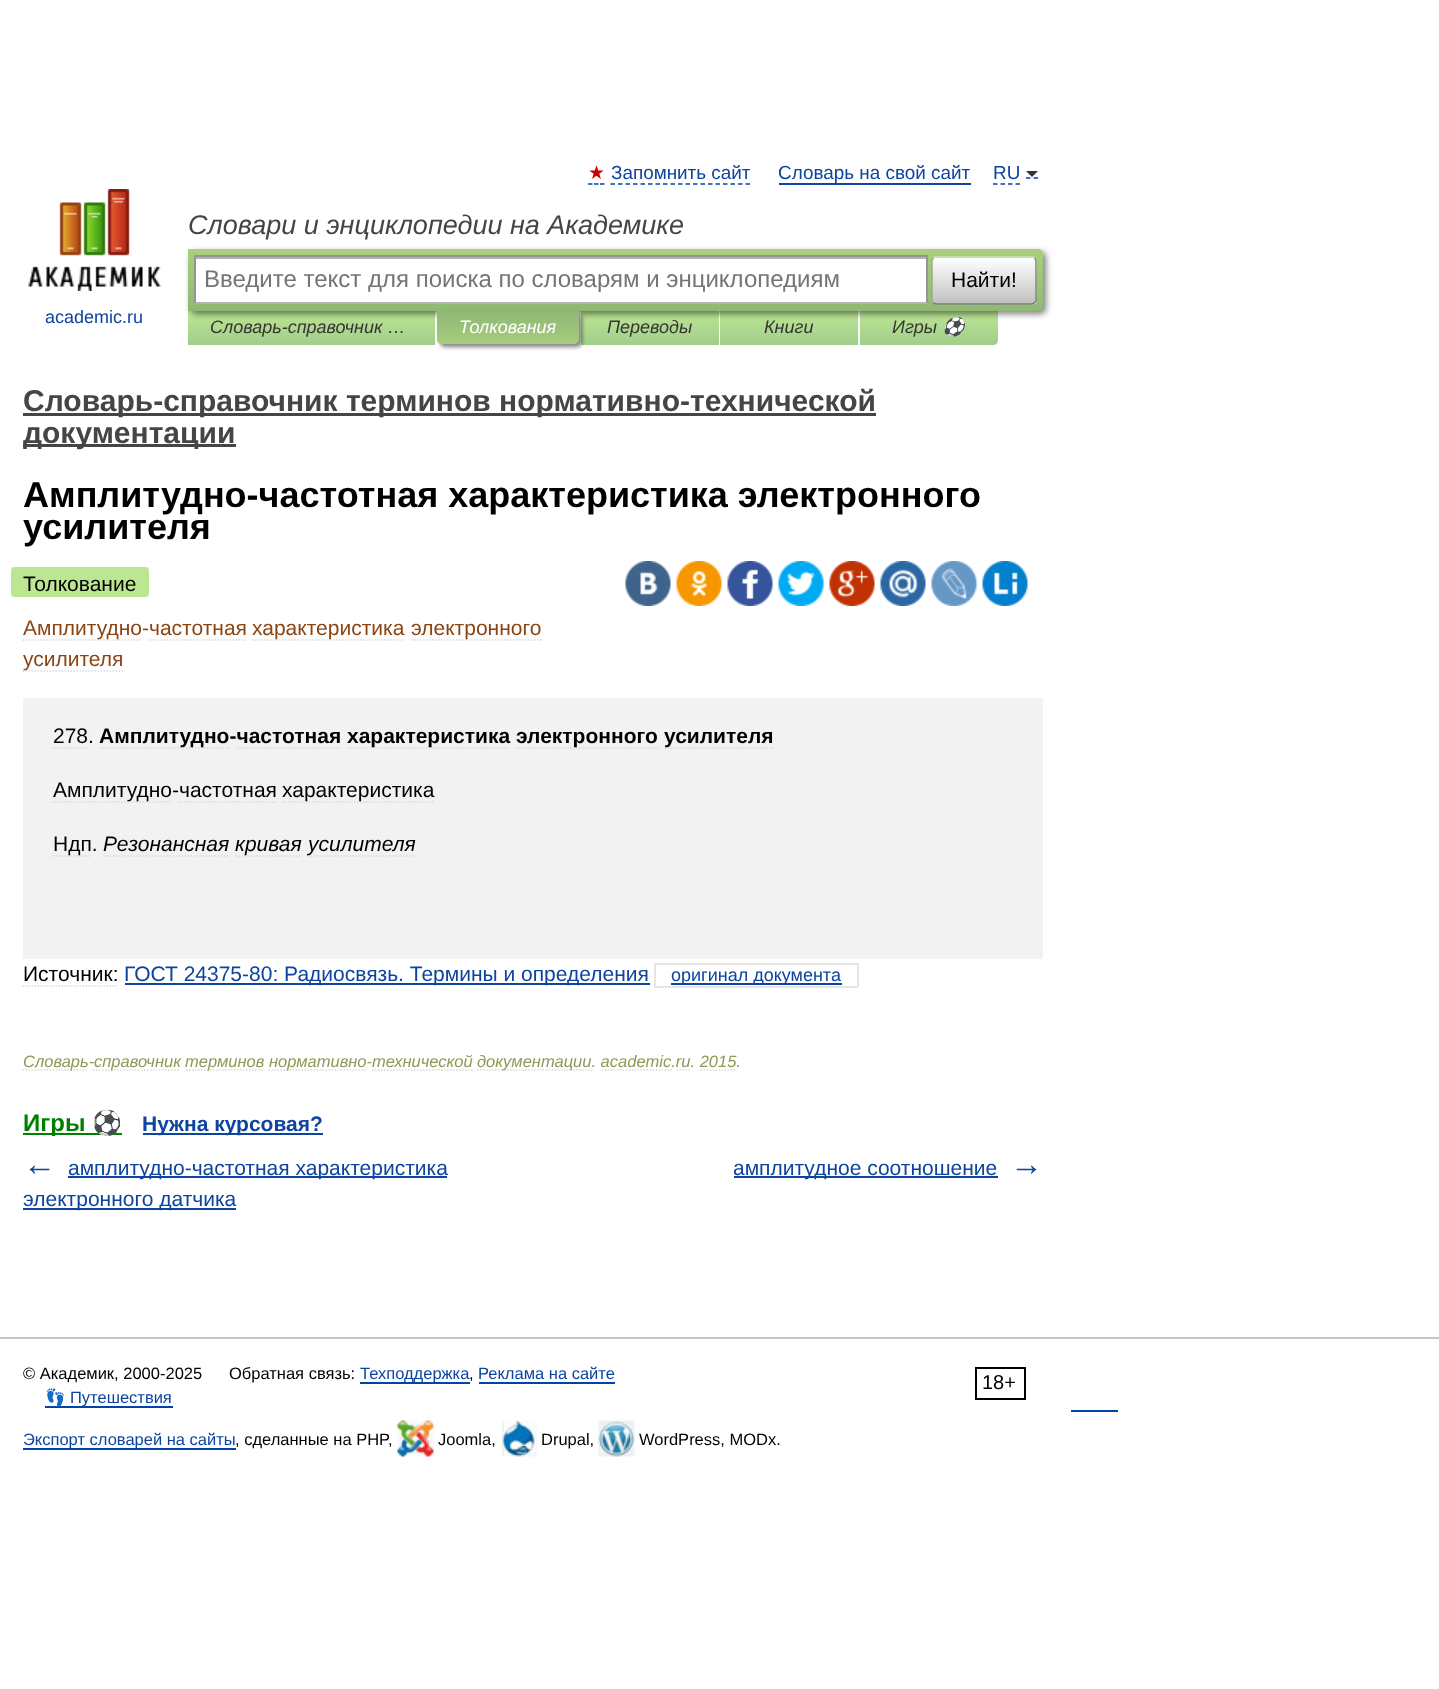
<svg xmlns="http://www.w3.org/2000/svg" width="1439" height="1689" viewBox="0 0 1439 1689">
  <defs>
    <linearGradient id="g1" gradientUnits="userSpaceOnUse" x1="311" y1="311" x2="311" y2="345"><stop offset="0" stop-color="#bde693"/><stop offset="1" stop-color="#a0ce8a"/></linearGradient>
    <linearGradient id="g2" gradientUnits="userSpaceOnUse" x1="650" y1="311" x2="650" y2="345"><stop offset="0" stop-color="#bde693"/><stop offset="1" stop-color="#a0ce8a"/></linearGradient>
    <linearGradient id="g3" gradientUnits="userSpaceOnUse" x1="789" y1="311" x2="789" y2="345"><stop offset="0" stop-color="#bde693"/><stop offset="1" stop-color="#a0ce8a"/></linearGradient>
    <linearGradient id="g4" gradientUnits="userSpaceOnUse" x1="929" y1="311" x2="929" y2="345"><stop offset="0" stop-color="#bde693"/><stop offset="1" stop-color="#a0ce8a"/></linearGradient>
    <filter id="blur1" x="-50%" y="-200%" width="200%" height="500%"><feGaussianBlur stdDeviation="3"/></filter>
    <linearGradient id="g5" gradientUnits="userSpaceOnUse" x1="615" y1="249" x2="615" y2="311"><stop offset="0" stop-color="#abcf7e"/><stop offset="1" stop-color="#8eb874"/></linearGradient>
    <clipPath id="clip1"><rect x="932" y="257" width="105" height="48" rx="5"/></clipPath>
    <linearGradient id="g6" gradientUnits="userSpaceOnUse" x1="984" y1="258" x2="984" y2="303"><stop offset="0" stop-color="#ffffff"/><stop offset="1" stop-color="#c1c1c1"/></linearGradient>
    <linearGradient id="g7" gradientUnits="userSpaceOnUse" x1="984" y1="303" x2="984" y2="348"><stop offset="0" stop-color="#ffffff"/><stop offset="1" stop-color="#c1c1c1"/></linearGradient>
    <filter id="blur2" x="-50%" y="-200%" width="200%" height="500%"><feGaussianBlur stdDeviation="2"/></filter>
    <linearGradient id="g8" gradientUnits="userSpaceOnUse" x1="508" y1="311" x2="508" y2="344"><stop offset="0" stop-color="#8fb875"/><stop offset="1" stop-color="#a7cc7d"/></linearGradient>
  </defs>
  <rect width="100%" height="100%" fill="#ffffff"/>
  <text x="588" y="179" font-family="DejaVu Sans" font-size="18.9" fill="#cc0000">★</text>
  <path d="M588 184H592.5M594 184H598.5M600 184H604.5" fill="none" stroke="#0044aa" stroke-width="1.5"/>
  <text x="611" y="179" font-family="Liberation Sans" font-size="18.9" fill="#0d44a0">Запомнить сайт</text>
  <path d="M610.5 184H750" fill="none" stroke="#0044aa" stroke-width="1.5" stroke-dasharray="4.5 3"/>
  <text x="778" y="179" font-family="Liberation Sans" font-size="18.9" fill="#0d44a0">Словарь на свой сайт</text>
  <rect x="779" y="183" width="192" height="2" fill="#0d44a0"/>
  <path d="M993 184H1020" fill="none" stroke="#0044aa" stroke-width="1.5" stroke-dasharray="4.5 3"/>
  <path d="M1026 178H1030.5M1033.5 178H1038" fill="none" stroke="#0044aa" stroke-width="1.5"/>
  <text x="993" y="179" font-family="Liberation Sans" font-size="18.9" fill="#0d44a0">RU</text>
  <path d="M1026 171H1038L1032 177Z" fill="#333333"/>
  <text x="188" y="234" font-family="Liberation Sans" font-size="27" font-style="italic" fill="#454545">Словари и энциклопедии на Академике</text>
  <rect x="188" y="311" width="247" height="34" fill="url(#g1)"/>
  <rect x="581" y="311" width="138" height="34" fill="url(#g2)"/>
  <rect x="720" y="311" width="138" height="34" fill="url(#g3)"/>
  <path d="M860 311H998V340C998 343 996 345 993 345H860Z" fill="url(#g4)"/>
  <rect x="191" y="252" width="855" height="62" rx="5" fill="#000000" fill-opacity="0.5" filter="url(#blur1)"/>
  <path d="M188 249H1038C1041 249 1043 251 1043 254V306C1043 309 1041 311 1038 311H188Z" fill="url(#g5)"/>
  <rect x="196" y="259" width="730" height="43" fill="#ffffff"/>
  <rect x="195" y="257" width="731" height="2" fill="#b3b3b3"/>
  <rect x="194" y="255" width="733" height="2" fill="#949494"/>
  <rect x="926" y="255" width="2" height="48" fill="#949494"/>
  <rect x="194" y="302" width="733" height="2" fill="#b4b4b4"/>
  <rect x="194" y="255" width="2" height="48" fill="#949494"/>
  <text x="204" y="287" font-family="Liberation Sans" font-size="24" fill="#757575">Введите текст для поиска по словарям и энциклопедиям</text>
  <g clip-path="url(#clip1)">
    <rect x="932" y="258" width="105" height="45" fill="url(#g6)"/>
    <rect x="932" y="303" width="105" height="2" fill="url(#g7)"/>
  </g>
  <path d="M933.5 258.5C934 257.5 935 257 936 257H1032C1033 257 1034 257.5 1034.5 258.5" fill="none" stroke="#d1e4bc" stroke-width="1.5"/>
  <path d="M1034.5 258.5C1035.5 259 1036 260 1036 261V300C1036 301 1035.5 302 1034.5 302.5" fill="none" stroke="#7a8e69" stroke-width="1.5"/>
  <path d="M1034.5 302.5C1034 303.5 1033 304 1032 304H936C935 304 934 303.5 933.5 302.5" fill="none" stroke="#5d7250" stroke-width="1.5"/>
  <path d="M933.5 302.5C932.5 302 932 301 932 300V261C932 260 932.5 259 933.5 258.5" fill="none" stroke="#9aae89" stroke-width="1.5"/>
  <text x="951" y="287" font-family="Liberation Sans" font-size="21" fill="#000000">Найти!</text>
  <image x="28" y="189" width="133" height="102" href="img1.png"/>
  <text x="45" y="323" font-family="Liberation Sans" font-size="18" fill="#0d44a0">academic.ru</text>
  <text x="210" y="333" font-family="Liberation Sans" font-size="18" font-style="italic" fill="#353535">Словарь-справочник …</text>
  <rect x="440" y="314" width="142" height="33" rx="5" fill="#000000" fill-opacity="0.5" filter="url(#blur2)"/>
  <path d="M437 311H579V339C579 342 577 344 574 344H442C439 344 437 342 437 339Z" fill="url(#g8)"/>
  <text x="459" y="333" font-family="Liberation Sans" font-size="18" font-style="italic" fill="#ffffff">Толкования</text>
  <text x="607" y="333" font-family="Liberation Sans" font-size="18" font-style="italic" fill="#353535">Переводы</text>
  <text x="764" y="333" font-family="Liberation Sans" font-size="18" font-style="italic" fill="#353535">Книги</text>
  <text x="892" y="333" font-family="Liberation Sans" font-size="18" font-style="italic" fill="#353535">Игры</text>
  <text x="942" y="333" font-family="Noto Color Emoji" font-size="18" font-style="italic" fill="#353535">⚽</text>
  <rect x="23" y="413" width="853" height="3" fill="#454545"/>
  <text x="23" y="411" font-family="Liberation Sans" font-size="30" font-weight="bold" fill="#454545">Словарь-справочник терминов нормативно-технической</text>
  <rect x="23" y="444" width="213" height="3" fill="#454545"/>
  <text x="23" y="443" font-family="Liberation Sans" font-size="30" font-weight="bold" fill="#454545">документации</text>
  <text x="23" y="507" font-family="Liberation Sans" font-size="36" font-weight="bold" fill="#000000">Амплитудно-частотная характеристика электронного</text>
  <text x="23" y="539" font-family="Liberation Sans" font-size="36" font-weight="bold" fill="#000000">усилителя</text>
  <path d="M14 567H23V597H14C12.5 597 11 595.5 11 594V570C11 568.5 12.5 567 14 567Z" fill="#bde693"/>
  <path d="M23 567H146C147.5 567 149 568.5 149 570V594C149 595.5 147.5 597 146 597H23Z" fill="#bde693"/>
  <text x="23" y="591" font-family="Liberation Sans" font-size="21" fill="#000000">Толкование</text>
  <image x="625" y="561" width="46" height="45" href="img2.png"/>
  <image x="676" y="561" width="46" height="45" href="img3.png"/>
  <image x="727" y="561" width="46" height="45" href="img4.png"/>
  <image x="778" y="561" width="46" height="45" href="img5.png"/>
  <image x="829" y="561" width="46" height="45" href="img6.png"/>
  <image x="880" y="561" width="46" height="45" href="img7.png"/>
  <image x="931" y="561" width="46" height="45" href="img8.png"/>
  <image x="982" y="561" width="46" height="45" href="img9.png"/>
  <path d="M22.5 640H141" fill="none" stroke="#d9d9d9" stroke-width="1.5" stroke-dasharray="1.5 1.5"/>
  <text x="23" y="635" font-family="Liberation Sans" font-size="21" fill="#8b4513">Амплитудно-частотная</text>
  <path d="M252 640H405" fill="none" stroke="#d9d9d9" stroke-width="1.5" stroke-dasharray="1.5 1.5"/>
  <text x="252" y="635" font-family="Liberation Sans" font-size="21" fill="#8b4513">характеристика</text>
  <path d="M411 640H541.5" fill="none" stroke="#d9d9d9" stroke-width="1.5" stroke-dasharray="1.5 1.5"/>
  <text x="411" y="635" font-family="Liberation Sans" font-size="21" fill="#8b4513">электронного</text>
  <path d="M148.5 640H246" fill="none" stroke="#d9d9d9" stroke-width="1.5" stroke-dasharray="1.5 1.5"/>
  <path d="M22.5 671H123" fill="none" stroke="#d9d9d9" stroke-width="1.5" stroke-dasharray="1.5 1.5"/>
  <text x="23" y="666" font-family="Liberation Sans" font-size="21" fill="#8b4513">усилителя</text>
  <rect x="23" y="698" width="1020" height="261" fill="#f2f2f2"/>
  <text x="53" y="743" font-family="Liberation Sans" font-size="21" fill="#000000">278.</text>
  <path d="M52.5 748H87" fill="none" stroke="#d9d9d9" stroke-width="1.5" stroke-dasharray="1.5 1.5"/>
  <path d="M99 748H229.5" fill="none" stroke="#d9d9d9" stroke-width="1.5" stroke-dasharray="1.5 1.5"/>
  <text x="99" y="743" font-family="Liberation Sans" font-size="21" font-weight="bold" fill="#000000">Амплитудно-частотная</text>
  <path d="M237 748H342" fill="none" stroke="#d9d9d9" stroke-width="1.5" stroke-dasharray="1.5 1.5"/>
  <path d="M348 748H510" fill="none" stroke="#d9d9d9" stroke-width="1.5" stroke-dasharray="1.5 1.5"/>
  <text x="347" y="743" font-family="Liberation Sans" font-size="21" font-weight="bold" fill="#000000">характеристика</text>
  <path d="M516 748H658.5" fill="none" stroke="#d9d9d9" stroke-width="1.5" stroke-dasharray="1.5 1.5"/>
  <text x="516" y="743" font-family="Liberation Sans" font-size="21" font-weight="bold" fill="#000000">электронного</text>
  <path d="M664.5 748H774" fill="none" stroke="#d9d9d9" stroke-width="1.5" stroke-dasharray="1.5 1.5"/>
  <text x="664" y="743" font-family="Liberation Sans" font-size="21" font-weight="bold" fill="#000000">усилителя</text>
  <path d="M52.5 802H171" fill="none" stroke="#d9d9d9" stroke-width="1.5" stroke-dasharray="1.5 1.5"/>
  <text x="53" y="797" font-family="Liberation Sans" font-size="21" fill="#000000">Амплитудно-частотная</text>
  <path d="M282 802H435" fill="none" stroke="#d9d9d9" stroke-width="1.5" stroke-dasharray="1.5 1.5"/>
  <text x="282" y="797" font-family="Liberation Sans" font-size="21" fill="#000000">характеристика</text>
  <path d="M178.5 802H276" fill="none" stroke="#d9d9d9" stroke-width="1.5" stroke-dasharray="1.5 1.5"/>
  <path d="M52.5 856H91.5" fill="none" stroke="#d9d9d9" stroke-width="1.5" stroke-dasharray="1.5 1.5"/>
  <text x="53" y="851" font-family="Liberation Sans" font-size="21" fill="#000000">Ндп.</text>
  <text x="103" y="851" font-family="Liberation Sans" font-size="21" font-style="italic" fill="#000000">Резонансная</text>
  <path d="M103.5 856H229.5" fill="none" stroke="#d9d9d9" stroke-width="1.5" stroke-dasharray="1.5 1.5"/>
  <path d="M235.5 856H301.5" fill="none" stroke="#d9d9d9" stroke-width="1.5" stroke-dasharray="1.5 1.5"/>
  <text x="235" y="851" font-family="Liberation Sans" font-size="21" font-style="italic" fill="#000000">кривая</text>
  <path d="M307.5 856H415.5" fill="none" stroke="#d9d9d9" stroke-width="1.5" stroke-dasharray="1.5 1.5"/>
  <text x="308" y="851" font-family="Liberation Sans" font-size="21" font-style="italic" fill="#000000">усилителя</text>
  <text x="23" y="981" font-family="Liberation Sans" font-size="21" fill="#000000">Источник:</text>
  <path d="M22.5 986H118.5" fill="none" stroke="#d9d9d9" stroke-width="1.5" stroke-dasharray="1.5 1.5"/>
  <rect x="125" y="983" width="525" height="2" fill="#0d44a0"/>
  <text x="124" y="981" font-family="Liberation Sans" font-size="21" fill="#0d44a0">ГОСТ 24375-80: Радиосвязь. Термины и определения</text>
  <rect x="671" y="983" width="171" height="2" fill="#0d44a0"/>
  <text x="671" y="981" font-family="Liberation Sans" font-size="18" fill="#0d44a0">оригинал документа</text>
  <rect x="654" y="963" width="204" height="2" fill="#e5e5e5"/>
  <rect x="654" y="986" width="100" height="2" fill="#e5e5e5"/>
  <rect x="654" y="963" width="2" height="24" fill="#e5e5e5"/>
  <rect x="857" y="963" width="2" height="24" fill="#e5e5e5"/>
  <rect x="753" y="986" width="105" height="2" fill="#e5e5e5"/>
  <path d="M22.5 1070H88.5" fill="none" stroke="#d9d9d9" stroke-width="1.5" stroke-dasharray="1.5 1.5"/>
  <text x="23" y="1067" font-family="Liberation Sans" font-size="16.5" font-style="italic" fill="#939756">Словарь-</text>
  <path d="M93 1070H180" fill="none" stroke="#d9d9d9" stroke-width="1.5" stroke-dasharray="1.5 1.5"/>
  <text x="94" y="1067" font-family="Liberation Sans" font-size="16.5" font-style="italic" fill="#939756">справочник</text>
  <path d="M186 1070H264" fill="none" stroke="#d9d9d9" stroke-width="1.5" stroke-dasharray="1.5 1.5"/>
  <text x="185" y="1067" font-family="Liberation Sans" font-size="16.5" font-style="italic" fill="#939756">терминов</text>
  <path d="M268.5 1070H366" fill="none" stroke="#d9d9d9" stroke-width="1.5" stroke-dasharray="1.5 1.5"/>
  <text x="269" y="1067" font-family="Liberation Sans" font-size="16.5" font-style="italic" fill="#939756">нормативно-технической</text>
  <path d="M372 1070H472.5" fill="none" stroke="#d9d9d9" stroke-width="1.5" stroke-dasharray="1.5 1.5"/>
  <path d="M477 1070H592.5" fill="none" stroke="#d9d9d9" stroke-width="1.5" stroke-dasharray="1.5 1.5"/>
  <text x="477" y="1067" font-family="Liberation Sans" font-size="16.5" font-style="italic" fill="#939756">документации. academic.ru. 2015.</text>
  <path d="M601.5 1070H672" fill="none" stroke="#d9d9d9" stroke-width="1.5" stroke-dasharray="1.5 1.5"/>
  <path d="M676.5 1070H691.5M700.5 1070H736.5" fill="none" stroke="#d9d9d9" stroke-width="1.5" stroke-dasharray="1.5 1.5"/>
  <rect x="23" y="1133" width="99" height="2" fill="#008000"/>
  <text x="23" y="1131" font-family="Liberation Sans" font-size="24" font-weight="bold" fill="#008000">Игры</text>
  <text x="92" y="1131" font-family="Noto Color Emoji" font-size="24" font-weight="bold" fill="#008000">⚽</text>
  <rect x="143" y="1133" width="180" height="2" fill="#0d44a0"/>
  <text x="142" y="1131" font-family="Liberation Sans" font-size="21" font-weight="bold" fill="#0d44a0">Нужна курсовая?</text>
  <text x="23" y="1175" font-family="Liberation Sans" font-size="33" font-weight="bold" fill="#0d44a0">←</text>
  <rect x="68" y="1176" width="379" height="2" fill="#0d44a0"/>
  <text x="68" y="1175" font-family="Liberation Sans" font-size="21" fill="#0d44a0">амплитудно-частотная характеристика</text>
  <rect x="23" y="1208" width="213" height="2" fill="#0d44a0"/>
  <text x="23" y="1206" font-family="Liberation Sans" font-size="21" fill="#0d44a0">электронного датчика</text>
  <rect x="734" y="1176" width="264" height="2" fill="#0d44a0"/>
  <text x="733" y="1175" font-family="Liberation Sans" font-size="21" fill="#0d44a0">амплитудное соотношение</text>
  <text x="1010" y="1175" font-family="Liberation Sans" font-size="33" font-weight="bold" fill="#0d44a0">→</text>
  <rect x="0" y="1337" width="1439" height="2" fill="#c7c7c7"/>
  <text x="23" y="1379" font-family="Liberation Sans" font-size="16.5" fill="#000000">© Академик, 2000-2025</text>
  <text x="229" y="1379" font-family="Liberation Sans" font-size="16.5" fill="#000000">Обратная связь:</text>
  <rect x="360" y="1382" width="110" height="2" fill="#0044aa"/>
  <text x="360" y="1379" font-family="Liberation Sans" font-size="16.5" fill="#0d44a0">Техподдержка</text>
  <text x="469" y="1379" font-family="Liberation Sans" font-size="16.5" fill="#000000">,</text>
  <rect x="479" y="1382" width="136" height="2" fill="#0044aa"/>
  <text x="478" y="1379" font-family="Liberation Sans" font-size="16.5" fill="#0d44a0">Реклама на сайте</text>
  <rect x="976" y="1368" width="49" height="31" fill="none" stroke="#000000" stroke-width="2"/>
  <text x="982" y="1389" font-family="Liberation Sans" font-size="20" fill="#000000">18+</text>
  <rect x="45" y="1406" width="128" height="2" fill="#0044aa"/>
  <text x="45" y="1403" font-family="Noto Color Emoji" font-size="16.5" fill="#0d44a0">👣</text>
  <text x="70" y="1403" font-family="Liberation Sans" font-size="16.5" fill="#0d44a0">Путешествия</text>
  <rect x="1071" y="1410" width="47" height="2" fill="#0044aa"/>
  <rect x="23" y="1448" width="213" height="2" fill="#0044aa"/>
  <text x="23" y="1445" font-family="Liberation Sans" font-size="16.5" fill="#0d44a0">Экспорт словарей на сайты</text>
  <text x="235" y="1445" font-family="Liberation Sans" font-size="16.5" fill="#000000">, сделанные на PHP,</text>
  <image x="397" y="1420" width="37" height="37" href="img10.png"/>
  <text x="438" y="1445" font-family="Liberation Sans" font-size="16.5" fill="#000000">Joomla,</text>
  <image x="501" y="1420" width="36" height="37" href="img11.png"/>
  <text x="541" y="1445" font-family="Liberation Sans" font-size="16.5" fill="#000000">Drupal,</text>
  <image x="598" y="1420" width="37" height="37" href="img12.png"/>
  <text x="639" y="1445" font-family="Liberation Sans" font-size="16.5" fill="#000000">WordPress, MODx.</text>
</svg>
